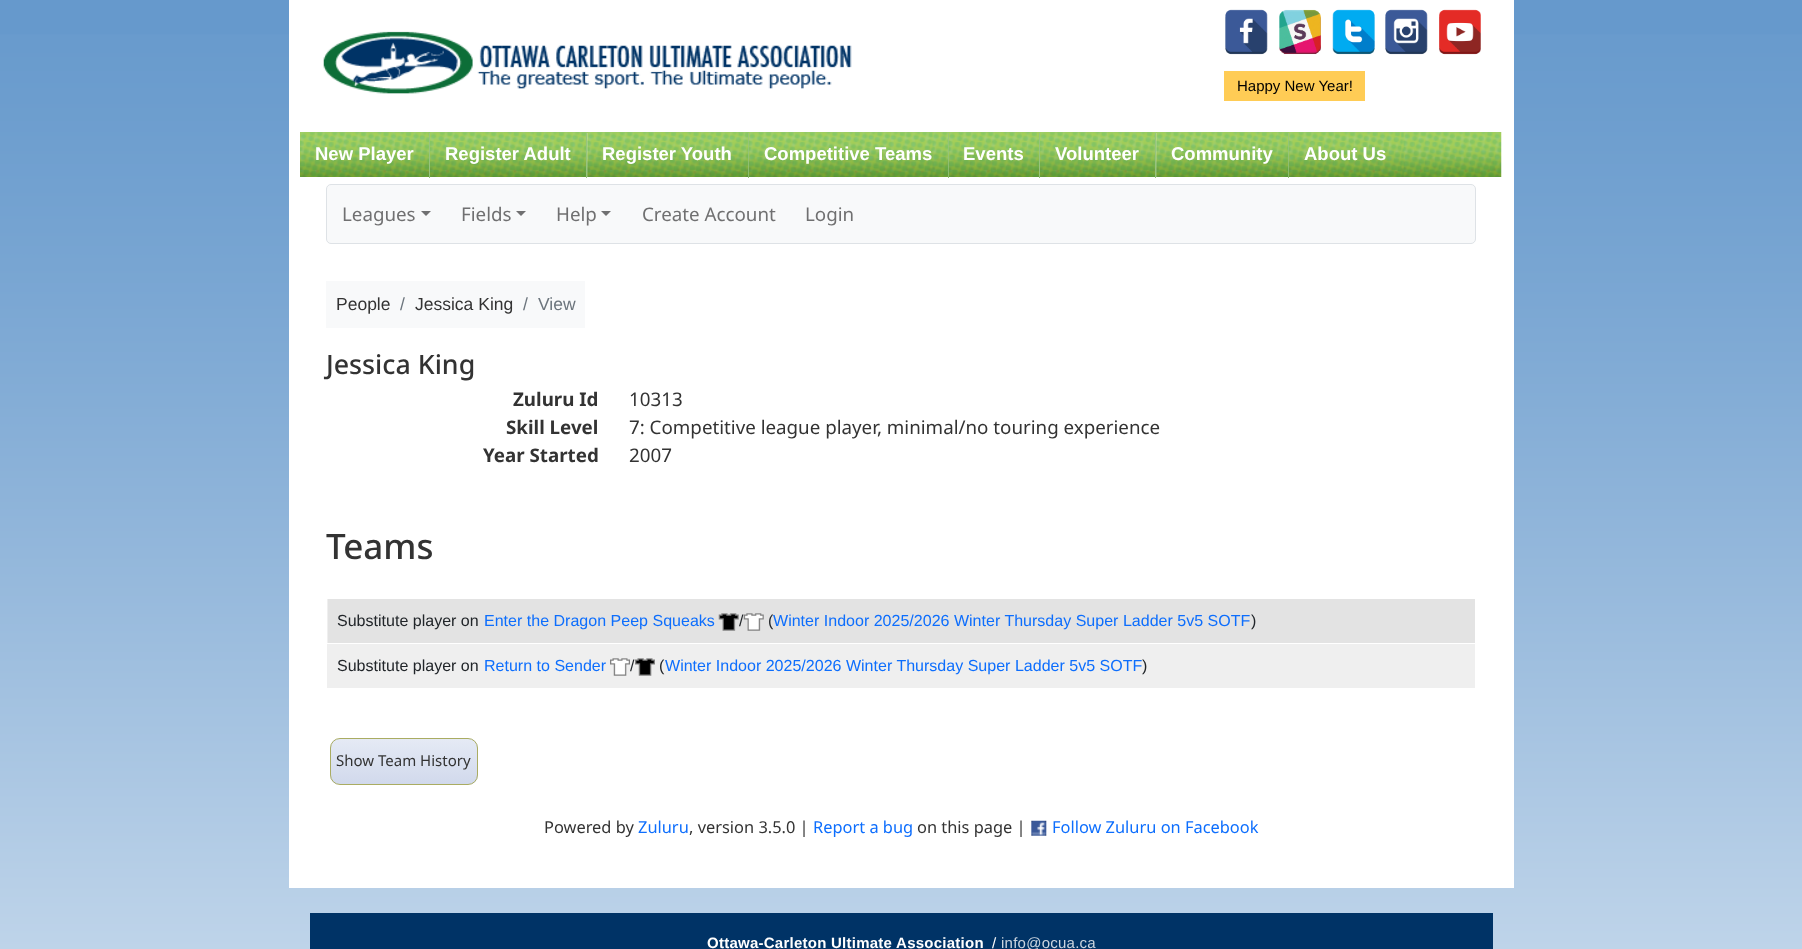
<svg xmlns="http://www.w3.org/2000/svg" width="1802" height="949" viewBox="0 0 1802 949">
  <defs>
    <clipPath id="clip1"><rect x="330" y="738" width="148" height="47" rx="10"/></clipPath>
    <linearGradient id="g1" gradientUnits="userSpaceOnUse" x1="331" y1="739" x2="331" y2="784"><stop offset="0" stop-color="#e5eaf5"/><stop offset="1" stop-color="#d1d9ec"/></linearGradient>
  </defs>
  <rect width="100%" height="100%" fill="#ffffff"/>
  <image x="0" y="0" width="1802" height="949" href="img1.png"/>
  <rect x="289" y="0" width="1225" height="888" fill="#ffffff"/>
  <image x="323" y="31" width="529" height="63" href="img2.png"/>
  <image x="1225" y="9" width="43" height="46" href="img3.png"/>
  <image x="1279" y="9" width="42" height="46" href="img4.png"/>
  <image x="1332" y="9" width="43" height="46" href="img5.png"/>
  <image x="1385" y="9" width="43" height="46" href="img6.png"/>
  <image x="1439" y="9" width="42" height="46" href="img7.png"/>
  <rect x="1224" y="71" width="141" height="30" fill="#ffcc55"/>
  <text x="1237" y="91" font-family="Liberation Sans" font-size="15" fill="#000000">Happy New Year!</text>
  <image x="587" y="132" width="915" height="45" href="img8.png"/>
  <image x="300" y="132" width="130" height="45" href="img9.png"/>
  <rect x="429" y="133" width="1" height="45" fill="#97c37e"/>
  <text x="315" y="160" font-family="Liberation Sans" font-size="18.5" font-weight="bold" fill="#ffffff">New Player</text>
  <rect x="587" y="133" width="1" height="44" fill="#ffffff" fill-opacity="0.7"/>
  <image x="430" y="132" width="158" height="45" href="img10.png"/>
  <rect x="586" y="133" width="1" height="45" fill="#97c37e"/>
  <text x="445" y="160" font-family="Liberation Sans" font-size="18.5" font-weight="bold" fill="#ffffff">Register Adult</text>
  <image x="587" y="132" width="162" height="45" href="img11.png"/>
  <rect x="748" y="133" width="1" height="45" fill="#97c37e"/>
  <text x="602" y="160" font-family="Liberation Sans" font-size="18.5" font-weight="bold" fill="#ffffff">Register Youth</text>
  <image x="748" y="132" width="201" height="45" href="img12.png"/>
  <rect x="948" y="133" width="1" height="45" fill="#97c37e"/>
  <text x="764" y="160" font-family="Liberation Sans" font-size="18.5" font-weight="bold" fill="#ffffff">Competitive Teams</text>
  <image x="948" y="132" width="92" height="45" href="img13.png"/>
  <rect x="1039" y="133" width="1" height="45" fill="#97c37e"/>
  <text x="963" y="160" font-family="Liberation Sans" font-size="18.5" font-weight="bold" fill="#ffffff">Events</text>
  <image x="1040" y="132" width="117" height="45" href="img14.png"/>
  <rect x="1155" y="133" width="1" height="45" fill="#97c37e"/>
  <text x="1055" y="160" font-family="Liberation Sans" font-size="18.5" font-weight="bold" fill="#ffffff">Volunteer</text>
  <rect x="1156" y="133" width="132" height="44" fill="#ffffff" fill-opacity="0.7"/>
  <image x="1156" y="132" width="133" height="45" href="img15.png"/>
  <rect x="1288" y="133" width="1" height="45" fill="#97c37e"/>
  <text x="1171" y="160" font-family="Liberation Sans" font-size="18.5" font-weight="bold" fill="#ffffff">Community</text>
  <image x="1288" y="132" width="114" height="45" href="img16.png"/>
  <text x="1304" y="160" font-family="Liberation Sans" font-size="18.5" font-weight="bold" fill="#ffffff">About Us</text>
  <rect x="326.5" y="184.5" width="1149" height="59" rx="4.5" fill="#f8f9fa" stroke="#dee2e6"/>
  <text x="342" y="221" font-family="Noto Sans" font-size="18.75" fill="#707071">Leagues</text>
  <path d="M421 211H431L426 216Z" fill="#707071"/>
  <text x="461" y="221" font-family="Noto Sans" font-size="18.75" fill="#707071">Fields</text>
  <path d="M516 211H526L521 216Z" fill="#707071"/>
  <text x="556" y="221" font-family="Noto Sans" font-size="18.75" fill="#707071">Help</text>
  <path d="M601 211H611L606 216Z" fill="#707071"/>
  <text x="642" y="221" font-family="Noto Sans" font-size="18.75" fill="#707071">Create Account</text>
  <text x="805" y="221" font-family="Noto Sans" font-size="18.75" fill="#707071">Login</text>
  <rect x="326" y="281" width="259" height="47" fill="#f8f9fa"/>
  <text x="336" y="310" font-family="Liberation Sans" font-size="17.5" fill="#333333">People</text>
  <text x="400" y="310" font-family="Liberation Sans" font-size="17.5" fill="#6c757d">/</text>
  <text x="415" y="310" font-family="Liberation Sans" font-size="17.5" fill="#333333">Jessica King</text>
  <text x="523" y="310" font-family="Liberation Sans" font-size="17.5" fill="#6c757d">/</text>
  <text x="538" y="310" font-family="Liberation Sans" font-size="17.5" fill="#6c757d">View</text>
  <text x="326" y="374" font-family="Noto Sans" font-size="26.75" font-weight="500" fill="#333333">Jessica King</text>
  <text x="513" y="406" font-family="Noto Sans" font-size="18.75" font-weight="bold" fill="#333333">Zuluru Id</text>
  <text x="629" y="406" font-family="Noto Sans" font-size="18.75" fill="#333333">10313</text>
  <text x="506" y="434" font-family="Noto Sans" font-size="18.75" font-weight="bold" fill="#333333">Skill Level</text>
  <text x="629" y="434" font-family="Noto Sans" font-size="18.75" fill="#333333">7: Competitive league player, minimal/no touring experience</text>
  <text x="483" y="462" font-family="Noto Sans" font-size="18.75" font-weight="bold" fill="#333333">Year Started</text>
  <text x="629" y="462" font-family="Noto Sans" font-size="18.75" fill="#333333">2007</text>
  <text x="326" y="559" font-family="Noto Sans" font-size="35" font-weight="500" fill="#333333">Teams</text>
  <rect x="327" y="599" width="1" height="44" fill="#efefef"/>
  <rect x="328" y="599" width="1147" height="44" fill="#e3e3e3"/>
  <text x="337" y="626" font-family="Liberation Sans" font-size="16.05" fill="#212529">Substitute player on</text>
  <text x="484" y="626" font-family="Liberation Sans" font-size="16.05" fill="#0d6efd">Enter the Dragon Peep Squeaks</text>
  <image x="718" y="613" width="21" height="18" href="img17.png"/>
  <text x="739" y="626" font-family="Liberation Sans" font-size="16.05" fill="#212529">/</text>
  <image x="743" y="613" width="21" height="18" href="img18.png"/>
  <text x="768" y="626" font-family="Liberation Sans" font-size="16.05" fill="#212529">(</text>
  <text x="773" y="626" font-family="Liberation Sans" font-size="16.05" fill="#0d6efd">Winter Indoor 2025/2026 Winter Thursday Super Ladder 5v5 SOTF</text>
  <text x="1251" y="626" font-family="Liberation Sans" font-size="16.05" fill="#212529">)</text>
  <rect x="327" y="644" width="1148" height="44" fill="#efefef"/>
  <text x="337" y="671" font-family="Liberation Sans" font-size="16.05" fill="#212529">Substitute player on</text>
  <text x="484" y="671" font-family="Liberation Sans" font-size="16.05" fill="#0d6efd">Return to Sender</text>
  <image x="610" y="658" width="20" height="18" href="img19.png"/>
  <text x="630" y="671" font-family="Liberation Sans" font-size="16.05" fill="#212529">/</text>
  <image x="635" y="658" width="20" height="18" href="img20.png"/>
  <text x="659" y="671" font-family="Liberation Sans" font-size="16.05" fill="#212529">(</text>
  <text x="665" y="671" font-family="Liberation Sans" font-size="16.05" fill="#0d6efd">Winter Indoor 2025/2026 Winter Thursday Super Ladder 5v5 SOTF</text>
  <text x="1142" y="671" font-family="Liberation Sans" font-size="16.05" fill="#212529">)</text>
  <g clip-path="url(#clip1)">
    <rect x="330" y="739" width="148" height="45" fill="url(#g1)"/>
  </g>
  <rect x="330.5" y="738.5" width="147" height="46" rx="9.5" fill="none" stroke="#aaac62"/>
  <text x="336" y="766" font-family="Noto Sans" font-size="15" fill="#333333">Show Team History</text>
  <text x="544" y="833" font-family="Noto Sans" font-size="16.4" fill="#333333">Powered by</text>
  <text x="638" y="833" font-family="Noto Sans" font-size="16.4" fill="#0d6efd">Zuluru</text>
  <text x="689" y="833" font-family="Noto Sans" font-size="16.4" fill="#333333">, version 3.5.0 |</text>
  <text x="813" y="833" font-family="Noto Sans" font-size="16.4" fill="#0d6efd">Report a bug</text>
  <text x="917" y="833" font-family="Noto Sans" font-size="16.4" fill="#333333">on this page |</text>
  <image x="1031" y="820" width="16" height="16" href="img21.png"/>
  <text x="1052" y="833" font-family="Noto Sans" font-size="16.4" fill="#0d6efd">Follow Zuluru on Facebook</text>
  <rect x="310" y="913" width="1183" height="36" fill="#003366"/>
  <text x="707" y="948" font-family="Liberation Sans" font-size="15" font-weight="bold" letter-spacing="0.25" fill="#ffffff">Ottawa-Carleton Ultimate Association</text>
  <text x="992" y="948" font-family="Liberation Sans" font-size="15" letter-spacing="0.25" fill="#ffffff">/</text>
  <text x="1001" y="948" font-family="Liberation Sans" font-size="15" letter-spacing="0.25" fill="#ccd6e0">info@ocua.ca</text>
</svg>
